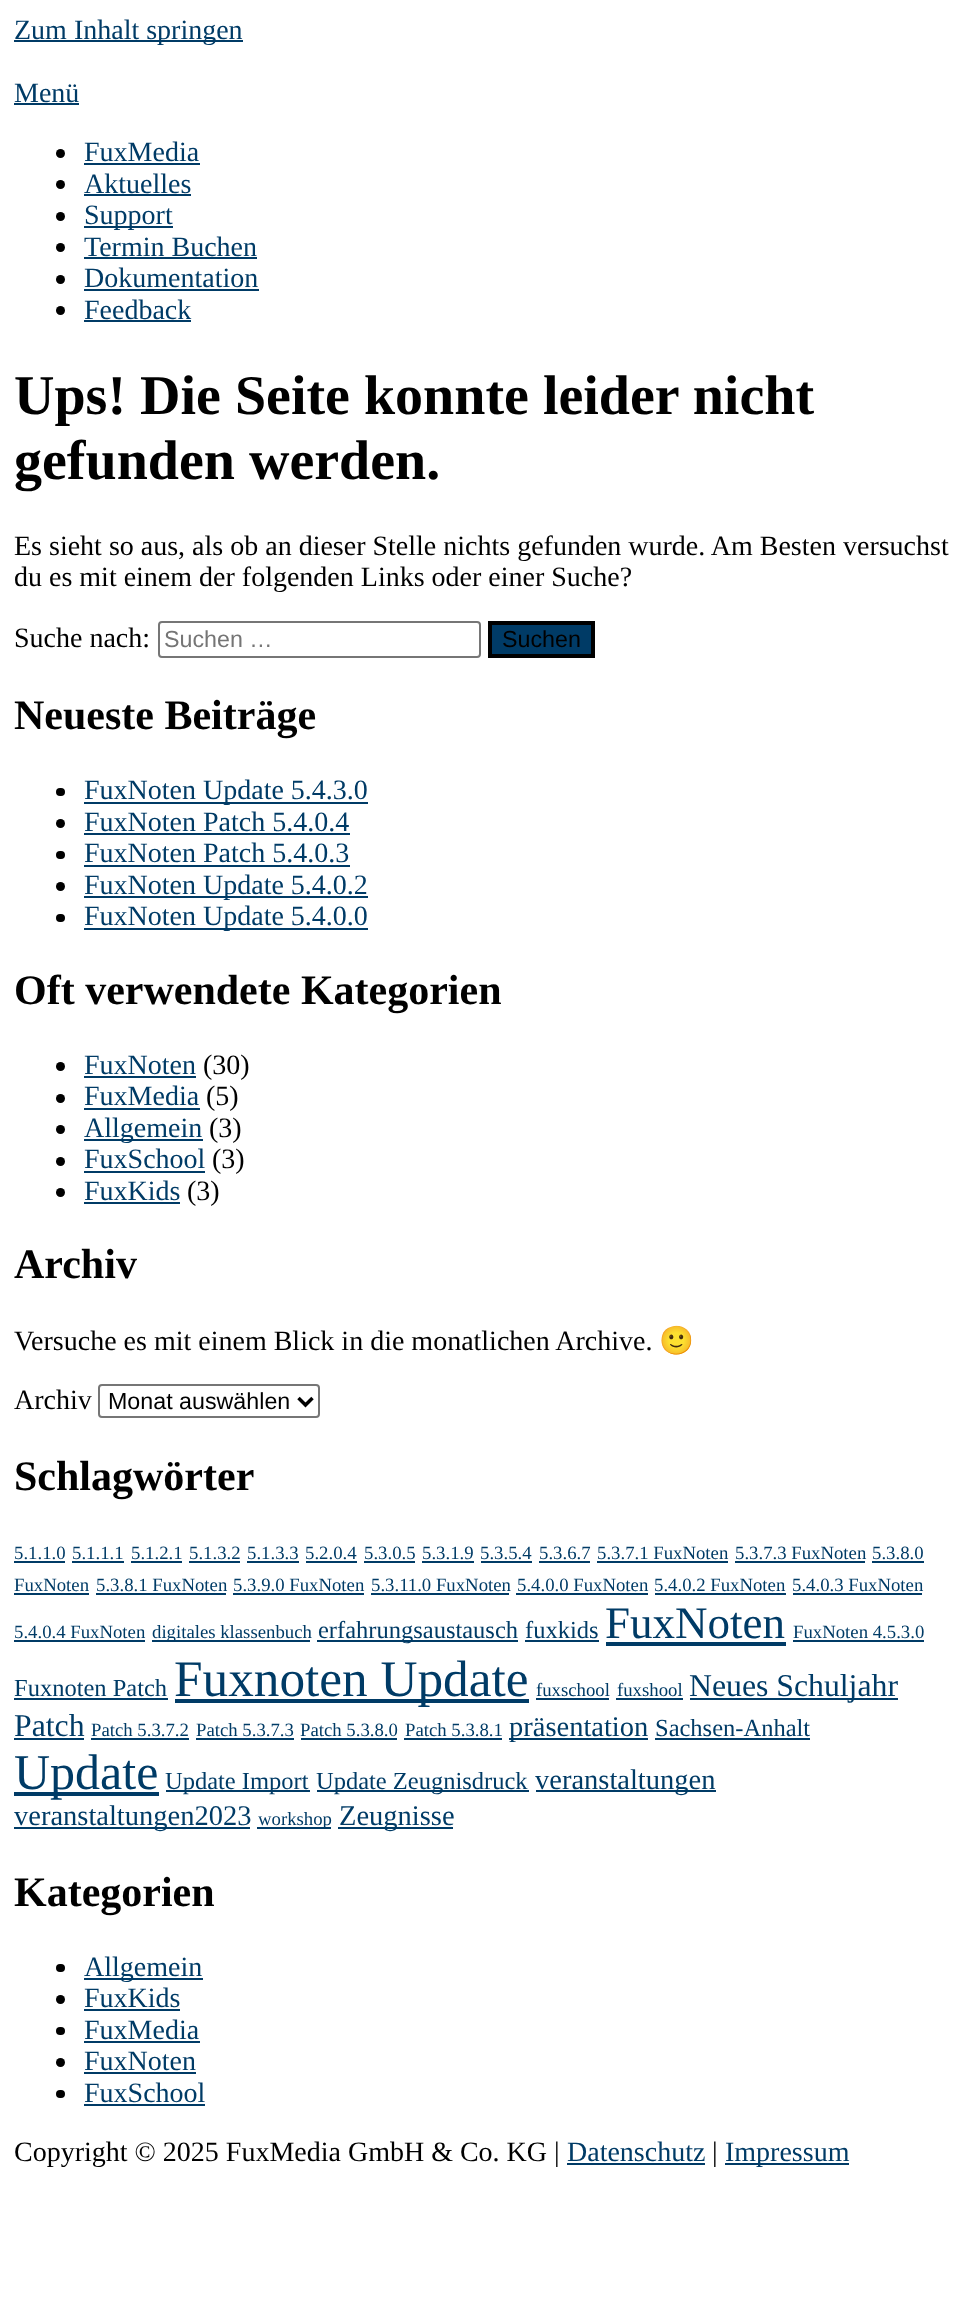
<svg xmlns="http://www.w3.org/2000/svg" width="966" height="2324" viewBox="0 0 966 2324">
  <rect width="100%" height="100%" fill="#ffffff"/>
  <rect x="14" y="40" width="229" height="2" fill="#003b66"/>
  <text x="14" y="39" font-family="Liberation Serif" font-size="28" fill="#003b66">Zum Inhalt springen</text>
  <text x="14" y="102" font-family="Liberation Serif" font-size="28" fill="#003b66">Menü</text>
  <rect x="14" y="103" width="65" height="2" fill="#003b66"/>
  <circle cx="60.5" cy="153.5" r="4.5" fill="#000000"/>
  <text x="84" y="161" font-family="Liberation Serif" font-size="28" fill="#003b66">FuxMedia</text>
  <rect x="84" y="163" width="116" height="2" fill="#003b66"/>
  <circle cx="60.5" cy="184.5" r="4.5" fill="#000000"/>
  <text x="84" y="193" font-family="Liberation Serif" font-size="28" fill="#003b66">Aktuelles</text>
  <rect x="84" y="194" width="107" height="2" fill="#003b66"/>
  <circle cx="60.5" cy="216.5" r="4.5" fill="#000000"/>
  <rect x="84" y="226" width="89" height="2" fill="#003b66"/>
  <text x="84" y="224" font-family="Liberation Serif" font-size="28" fill="#003b66">Support</text>
  <circle cx="60.5" cy="247.5" r="4.5" fill="#000000"/>
  <text x="84" y="256" font-family="Liberation Serif" font-size="28" fill="#003b66">Termin Buchen</text>
  <rect x="84" y="257" width="173" height="2" fill="#003b66"/>
  <circle cx="60.5" cy="279.5" r="4.5" fill="#000000"/>
  <text x="84" y="287" font-family="Liberation Serif" font-size="28" fill="#003b66">Dokumentation</text>
  <rect x="84" y="289" width="175" height="2" fill="#003b66"/>
  <circle cx="60.5" cy="310.5" r="4.5" fill="#000000"/>
  <text x="84" y="319" font-family="Liberation Serif" font-size="28" fill="#003b66">Feedback</text>
  <rect x="84" y="320" width="107" height="2" fill="#003b66"/>
  <text x="14" y="414" font-family="Liberation Serif" font-size="56" font-weight="bold" fill="#000000">Ups! Die Seite konnte leider nicht</text>
  <text x="14" y="479" font-family="Liberation Serif" font-size="56" font-weight="bold" fill="#000000">gefunden werden.</text>
  <text x="14" y="555" font-family="Liberation Serif" font-size="28" fill="#000000">Es sieht so aus, als ob an dieser Stelle nichts gefunden wurde. Am Besten versuchst</text>
  <text x="14" y="586" font-family="Liberation Serif" font-size="28" fill="#000000">du es mit einem der folgenden Links oder einer Suche?</text>
  <text x="14" y="647" font-family="Liberation Serif" font-size="28" fill="#000000">Suche nach:</text>
  <rect x="159" y="622" width="321" height="35" rx="3" fill="none" stroke="#767676" stroke-width="2"/>
  <text x="164" y="647" font-family="Liberation Sans" font-size="23.25" fill="#757575">Suchen …</text>
  <rect x="490" y="623" width="103" height="33" fill="#003b66" stroke="#000000" stroke-width="4"/>
  <text x="502" y="647" font-family="Liberation Sans" font-size="23.25" fill="#000000">Suchen</text>
  <text x="14" y="729" font-family="Liberation Serif" font-size="42" font-weight="bold" fill="#000000">Neueste Beiträge</text>
  <rect x="56" y="788" width="9" height="8" rx="4" fill="#000000"/>
  <rect x="84" y="802" width="284" height="2" fill="#003b66"/>
  <text x="84" y="799" font-family="Liberation Serif" font-size="28" fill="#003b66">FuxNoten Update 5.4.3.0</text>
  <circle cx="60.5" cy="823.5" r="4.5" fill="#000000"/>
  <text x="84" y="831" font-family="Liberation Serif" font-size="28" fill="#003b66">FuxNoten Patch 5.4.0.4</text>
  <rect x="84" y="833" width="266" height="2" fill="#003b66"/>
  <rect x="56" y="851" width="9" height="8" rx="4" fill="#000000"/>
  <text x="84" y="862" font-family="Liberation Serif" font-size="28" fill="#003b66">FuxNoten Patch 5.4.0.3</text>
  <rect x="84" y="865" width="266" height="2" fill="#003b66"/>
  <circle cx="60.5" cy="886.5" r="4.5" fill="#000000"/>
  <rect x="84" y="896" width="284" height="2" fill="#003b66"/>
  <text x="84" y="894" font-family="Liberation Serif" font-size="28" fill="#003b66">FuxNoten Update 5.4.0.2</text>
  <rect x="56" y="914" width="9" height="8" rx="4" fill="#000000"/>
  <rect x="84" y="928" width="284" height="2" fill="#003b66"/>
  <text x="84" y="925" font-family="Liberation Serif" font-size="28" fill="#003b66">FuxNoten Update 5.4.0.0</text>
  <text x="14" y="1004" font-family="Liberation Serif" font-size="42" font-weight="bold" fill="#000000">Oft verwendete Kategorien</text>
  <circle cx="60.5" cy="1066.5" r="4.5" fill="#000000"/>
  <text x="84" y="1074" font-family="Liberation Serif" font-size="28" fill="#003b66">FuxNoten</text>
  <rect x="84" y="1076" width="112" height="2" fill="#003b66"/>
  <text x="203" y="1074" font-family="Liberation Serif" font-size="28" fill="#000000">(30)</text>
  <circle cx="60.5" cy="1098.5" r="4.5" fill="#000000"/>
  <text x="84" y="1105" font-family="Liberation Serif" font-size="28" fill="#003b66">FuxMedia</text>
  <rect x="84" y="1108" width="116" height="2" fill="#003b66"/>
  <text x="206" y="1105" font-family="Liberation Serif" font-size="28" fill="#000000">(5)</text>
  <circle cx="60.5" cy="1129.5" r="4.5" fill="#000000"/>
  <rect x="84" y="1139" width="119" height="2" fill="#003b66"/>
  <text x="84" y="1137" font-family="Liberation Serif" font-size="28" fill="#003b66">Allgemein</text>
  <text x="209" y="1137" font-family="Liberation Serif" font-size="28" fill="#000000">(3)</text>
  <circle cx="60.5" cy="1161.5" r="4.5" fill="#000000"/>
  <text x="84" y="1168" font-family="Liberation Serif" font-size="28" fill="#003b66">FuxSchool</text>
  <rect x="84" y="1171" width="121" height="2" fill="#003b66"/>
  <text x="212" y="1168" font-family="Liberation Serif" font-size="28" fill="#000000">(3)</text>
  <circle cx="60.5" cy="1192.5" r="4.5" fill="#000000"/>
  <text x="84" y="1200" font-family="Liberation Serif" font-size="28" fill="#003b66">FuxKids</text>
  <rect x="84" y="1202" width="96" height="2" fill="#003b66"/>
  <text x="187" y="1200" font-family="Liberation Serif" font-size="28" fill="#000000">(3)</text>
  <text x="14" y="1278" font-family="Liberation Serif" font-size="42" font-weight="bold" fill="#000000">Archiv</text>
  <text x="14" y="1350" font-family="Liberation Serif" font-size="28" fill="#000000">Versuche es mit einem Blick in die monatlichen Archive.</text>
  <text x="659" y="1350" font-family="Noto Color Emoji" font-size="28" fill="#000000">🙂</text>
  <text x="14" y="1409" font-family="Liberation Serif" font-size="28" fill="#000000">Archiv</text>
  <rect x="99" y="1385" width="220" height="32" rx="3" fill="none" stroke="#767676" stroke-width="2"/>
  <path d="M298.5 1398L305.5 1405L312.5 1398" fill="none" stroke="#000000" stroke-width="3.5"/>
  <text x="108" y="1409" font-family="Liberation Sans" font-size="23.25" fill="#000000">Monat auswählen</text>
  <text x="14" y="1490" font-family="Liberation Serif" font-size="42" font-weight="bold" fill="#000000">Schlagwörter</text>
  <text x="14" y="1559" font-family="Liberation Serif" font-size="18.75" fill="#003b66">5.1.1.0</text>
  <rect x="14" y="1561" width="51" height="2" fill="#003b66"/>
  <text x="72" y="1559" font-family="Liberation Serif" font-size="18.75" fill="#003b66">5.1.1.1</text>
  <rect x="72" y="1561" width="52" height="2" fill="#003b66"/>
  <text x="131" y="1559" font-family="Liberation Serif" font-size="18.75" fill="#003b66">5.1.2.1</text>
  <rect x="131" y="1561" width="51" height="2" fill="#003b66"/>
  <text x="189" y="1559" font-family="Liberation Serif" font-size="18.75" fill="#003b66">5.1.3.2</text>
  <rect x="189" y="1561" width="51" height="2" fill="#003b66"/>
  <text x="247" y="1559" font-family="Liberation Serif" font-size="18.75" fill="#003b66">5.1.3.3</text>
  <rect x="247" y="1561" width="52" height="2" fill="#003b66"/>
  <text x="305" y="1559" font-family="Liberation Serif" font-size="18.75" fill="#003b66">5.2.0.4</text>
  <rect x="306" y="1561" width="51" height="2" fill="#003b66"/>
  <text x="364" y="1559" font-family="Liberation Serif" font-size="18.75" fill="#003b66">5.3.0.5</text>
  <rect x="364" y="1561" width="51" height="2" fill="#003b66"/>
  <text x="422" y="1559" font-family="Liberation Serif" font-size="18.75" fill="#003b66">5.3.1.9</text>
  <rect x="422" y="1561" width="52" height="2" fill="#003b66"/>
  <text x="480" y="1559" font-family="Liberation Serif" font-size="18.75" fill="#003b66">5.3.5.4</text>
  <rect x="481" y="1561" width="51" height="2" fill="#003b66"/>
  <text x="539" y="1559" font-family="Liberation Serif" font-size="18.75" fill="#003b66">5.3.6.7</text>
  <rect x="539" y="1561" width="51" height="2" fill="#003b66"/>
  <text x="597" y="1559" font-family="Liberation Serif" font-size="18.75" fill="#003b66">5.3.7.1 FuxNoten</text>
  <rect x="597" y="1561" width="131" height="2" fill="#003b66"/>
  <text x="735" y="1559" font-family="Liberation Serif" font-size="18.75" fill="#003b66">5.3.7.3 FuxNoten</text>
  <rect x="735" y="1561" width="130" height="2" fill="#003b66"/>
  <text x="872" y="1559" font-family="Liberation Serif" font-size="18.75" fill="#003b66">5.3.8.0</text>
  <rect x="872" y="1561" width="52" height="2" fill="#003b66"/>
  <text x="14" y="1591" font-family="Liberation Serif" font-size="18.75" fill="#003b66">FuxNoten</text>
  <rect x="14" y="1593" width="75" height="2" fill="#003b66"/>
  <text x="96" y="1591" font-family="Liberation Serif" font-size="18.75" fill="#003b66">5.3.8.1 FuxNoten</text>
  <rect x="96" y="1593" width="130" height="2" fill="#003b66"/>
  <text x="233" y="1591" font-family="Liberation Serif" font-size="18.75" fill="#003b66">5.3.9.0 FuxNoten</text>
  <rect x="233" y="1593" width="131" height="2" fill="#003b66"/>
  <text x="371" y="1591" font-family="Liberation Serif" font-size="18.75" fill="#003b66">5.3.11.0 FuxNoten</text>
  <rect x="371" y="1593" width="138" height="2" fill="#003b66"/>
  <text x="517" y="1591" font-family="Liberation Serif" font-size="18.75" fill="#003b66">5.4.0.0 FuxNoten</text>
  <rect x="516" y="1593" width="132" height="2" fill="#003b66"/>
  <text x="654" y="1591" font-family="Liberation Serif" font-size="18.75" fill="#003b66">5.4.0.2 FuxNoten</text>
  <rect x="655" y="1593" width="131" height="2" fill="#003b66"/>
  <text x="792" y="1591" font-family="Liberation Serif" font-size="18.75" fill="#003b66">5.4.0.3 FuxNoten</text>
  <rect x="793" y="1593" width="129" height="2" fill="#003b66"/>
  <text x="14" y="1638" font-family="Liberation Serif" font-size="18.75" fill="#003b66">5.4.0.4 FuxNoten</text>
  <rect x="14" y="1640" width="131" height="2" fill="#003b66"/>
  <rect x="152" y="1640" width="158" height="2" fill="#003b66"/>
  <text x="152" y="1638" font-family="Liberation Serif" font-size="18.75" fill="#003b66">digitales klassenbuch</text>
  <rect x="317" y="1640" width="201" height="2" fill="#003b66"/>
  <text x="318" y="1638" font-family="Liberation Serif" font-size="24.5" fill="#003b66">erfahrungsaustausch</text>
  <text x="525" y="1638" font-family="Liberation Serif" font-size="24.5" fill="#003b66">fuxkids</text>
  <rect x="525" y="1640" width="74" height="2" fill="#003b66"/>
  <text x="605" y="1638" font-family="Liberation Serif" font-size="45" fill="#003b66">FuxNoten</text>
  <rect x="606" y="1642" width="180" height="4" fill="#003b66"/>
  <text x="793" y="1638" font-family="Liberation Serif" font-size="18.75" fill="#003b66">FuxNoten 4.5.3.0</text>
  <rect x="793" y="1640" width="131" height="2" fill="#003b66"/>
  <text x="14" y="1696" font-family="Liberation Serif" font-size="24.5" fill="#003b66">Fuxnoten Patch</text>
  <rect x="14" y="1698" width="154" height="2" fill="#003b66"/>
  <rect x="175" y="1699" width="354" height="4" fill="#003b66"/>
  <text x="174" y="1696" font-family="Liberation Serif" font-size="51.25" fill="#003b66">Fuxnoten Update</text>
  <text x="536" y="1696" font-family="Liberation Serif" font-size="18.75" fill="#003b66">fuxschool</text>
  <rect x="536" y="1698" width="73" height="2" fill="#003b66"/>
  <text x="617" y="1696" font-family="Liberation Serif" font-size="18.75" fill="#003b66">fuxshool</text>
  <rect x="616" y="1698" width="67" height="2" fill="#003b66"/>
  <rect x="690" y="1698" width="208" height="2" fill="#003b66"/>
  <text x="689" y="1696" font-family="Liberation Serif" font-size="31.75" fill="#003b66">Neues Schuljahr</text>
  <text x="14" y="1736" font-family="Liberation Serif" font-size="31.75" fill="#003b66">Patch</text>
  <rect x="14" y="1738" width="70" height="2" fill="#003b66"/>
  <text x="91" y="1736" font-family="Liberation Serif" font-size="18.75" fill="#003b66">Patch 5.3.7.2</text>
  <rect x="91" y="1738" width="98" height="2" fill="#003b66"/>
  <text x="196" y="1736" font-family="Liberation Serif" font-size="18.75" fill="#003b66">Patch 5.3.7.3</text>
  <rect x="196" y="1738" width="98" height="2" fill="#003b66"/>
  <text x="300" y="1736" font-family="Liberation Serif" font-size="18.75" fill="#003b66">Patch 5.3.8.0</text>
  <rect x="301" y="1738" width="96" height="2" fill="#003b66"/>
  <text x="405" y="1736" font-family="Liberation Serif" font-size="18.75" fill="#003b66">Patch 5.3.8.1</text>
  <rect x="404" y="1738" width="98" height="2" fill="#003b66"/>
  <rect x="509" y="1738" width="139" height="2" fill="#003b66"/>
  <text x="509" y="1736" font-family="Liberation Serif" font-size="28.5" fill="#003b66">präsentation</text>
  <text x="655" y="1736" font-family="Liberation Serif" font-size="24.5" fill="#003b66">Sachsen-Anhalt</text>
  <rect x="655" y="1738" width="155" height="2" fill="#003b66"/>
  <rect x="14" y="1792" width="145" height="4" fill="#003b66"/>
  <text x="14" y="1789" font-family="Liberation Serif" font-size="50" fill="#003b66">Update</text>
  <rect x="166" y="1790" width="144" height="2" fill="#003b66"/>
  <text x="165" y="1789" font-family="Liberation Serif" font-size="24.5" fill="#003b66">Update Import</text>
  <rect x="317" y="1790" width="212" height="2" fill="#003b66"/>
  <text x="316" y="1789" font-family="Liberation Serif" font-size="24.5" fill="#003b66">Update Zeugnisdruck</text>
  <rect x="536" y="1790" width="180" height="2" fill="#003b66"/>
  <text x="535" y="1789" font-family="Liberation Serif" font-size="28.5" fill="#003b66">veranstaltungen</text>
  <rect x="14" y="1827" width="236" height="2" fill="#003b66"/>
  <text x="14" y="1825" font-family="Liberation Serif" font-size="28.5" fill="#003b66">veranstaltungen2023</text>
  <rect x="257" y="1827" width="74" height="2" fill="#003b66"/>
  <text x="258" y="1825" font-family="Liberation Serif" font-size="18.75" fill="#003b66">workshop</text>
  <rect x="338" y="1827" width="115" height="2" fill="#003b66"/>
  <text x="339" y="1825" font-family="Liberation Serif" font-size="28.5" fill="#003b66">Zeugnisse</text>
  <text x="14" y="1906" font-family="Liberation Serif" font-size="42" font-weight="bold" fill="#000000">Kategorien</text>
  <rect x="56" y="1964" width="9" height="8" rx="4" fill="#000000"/>
  <rect x="84" y="1978" width="119" height="2" fill="#003b66"/>
  <text x="84" y="1976" font-family="Liberation Serif" font-size="28" fill="#003b66">Allgemein</text>
  <circle cx="60.5" cy="1999.5" r="4.5" fill="#000000"/>
  <text x="84" y="2007" font-family="Liberation Serif" font-size="28" fill="#003b66">FuxKids</text>
  <rect x="84" y="2009" width="96" height="2" fill="#003b66"/>
  <rect x="56" y="2027" width="9" height="8" rx="4" fill="#000000"/>
  <text x="84" y="2039" font-family="Liberation Serif" font-size="28" fill="#003b66">FuxMedia</text>
  <rect x="84" y="2041" width="116" height="2" fill="#003b66"/>
  <circle cx="60.5" cy="2062.5" r="4.5" fill="#000000"/>
  <text x="84" y="2070" font-family="Liberation Serif" font-size="28" fill="#003b66">FuxNoten</text>
  <rect x="84" y="2072" width="112" height="2" fill="#003b66"/>
  <rect x="56" y="2090" width="9" height="8" rx="4" fill="#000000"/>
  <text x="84" y="2102" font-family="Liberation Serif" font-size="28" fill="#003b66">FuxSchool</text>
  <rect x="84" y="2104" width="121" height="2" fill="#003b66"/>
  <text x="14" y="2161" font-family="Liberation Serif" font-size="28" fill="#000000">Copyright © 2025 FuxMedia GmbH &amp; Co. KG |</text>
  <text x="567" y="2161" font-family="Liberation Serif" font-size="28" fill="#003b66">Datenschutz</text>
  <rect x="567" y="2163" width="138" height="2" fill="#003b66"/>
  <text x="712" y="2161" font-family="Liberation Serif" font-size="28" fill="#000000">|</text>
  <rect x="725" y="2163" width="124" height="2" fill="#003b66"/>
  <text x="725" y="2161" font-family="Liberation Serif" font-size="28" fill="#003b66">Impressum</text>
</svg>
